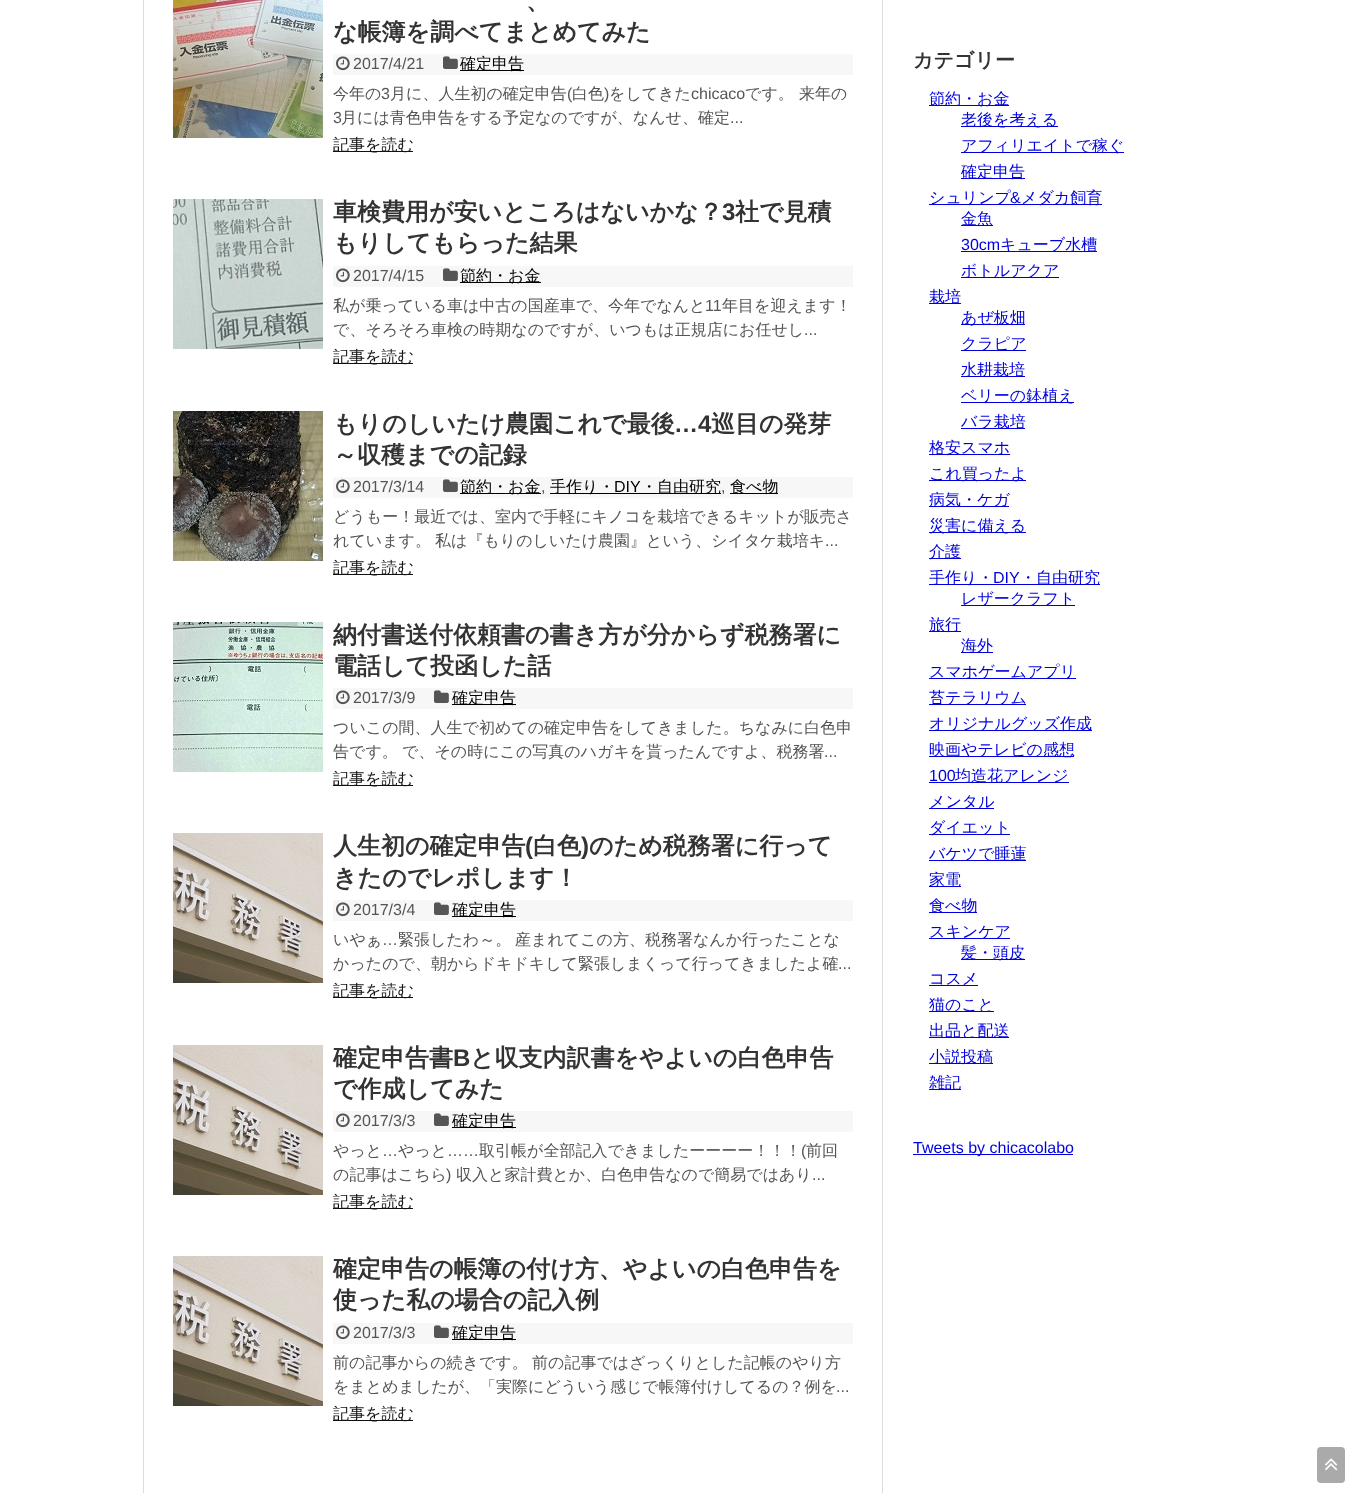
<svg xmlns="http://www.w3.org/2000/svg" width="1355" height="1493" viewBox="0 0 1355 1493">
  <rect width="100%" height="100%" fill="#ffffff"/>
  <rect x="143.5" y="-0.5" width="739" height="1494" fill="none" stroke="#dddddd"/>
  <image x="173" y="0" width="150" height="138" href="img1.png"/>
  <text x="526" y="9" font-family="WenQuanYi Zen Hei" font-size="24" font-weight="bold" fill="#333333">、</text>
  <text x="333" y="40" font-family="WenQuanYi Zen Hei" font-size="24" font-weight="bold" fill="#333333">な帳簿を調べてまとめてみた</text>
  <rect x="333" y="54" width="520" height="21" fill="#f7f7f7"/>
  <image x="336" y="56" width="14" height="15" href="img2.png"/>
  <text x="353" y="69" font-family="Liberation Sans" font-size="16" fill="#555555">2017/4/21</text>
  <image x="443" y="56" width="15" height="13" href="img3.png"/>
  <rect x="460" y="70" width="64" height="1" fill="#000000"/>
  <text x="460" y="69" font-family="WenQuanYi Zen Hei" font-size="16" font-weight="500" fill="#000000">確定申告</text>
  <text x="333" y="99" font-family="WenQuanYi Zen Hei" font-size="16" font-weight="500" fill="#555555">今年の</text>
  <text x="381" y="99" font-family="Liberation Sans" font-size="16" fill="#555555">3</text>
  <text x="390" y="99" font-family="WenQuanYi Zen Hei" font-size="16" font-weight="500" fill="#555555">月に、人生初の確定申告</text>
  <text x="567" y="99" font-family="Liberation Sans" font-size="16" fill="#555555">(</text>
  <text x="572" y="99" font-family="WenQuanYi Zen Hei" font-size="16" font-weight="500" fill="#555555">白色</text>
  <text x="604" y="99" font-family="Liberation Sans" font-size="16" fill="#555555">)</text>
  <text x="609" y="99" font-family="WenQuanYi Zen Hei" font-size="16" font-weight="500" fill="#555555">をしてきた</text>
  <text x="691" y="99" font-family="Liberation Sans" font-size="16" fill="#555555">chicaco</text>
  <text x="745" y="99" font-family="WenQuanYi Zen Hei" font-size="16" font-weight="500" fill="#555555">です。</text>
  <text x="799" y="99" font-family="WenQuanYi Zen Hei" font-size="16" font-weight="500" fill="#555555">来年の</text>
  <text x="333" y="123" font-family="Liberation Sans" font-size="16" fill="#555555">3</text>
  <text x="341" y="123" font-family="WenQuanYi Zen Hei" font-size="16" font-weight="500" fill="#555555">月には青色申告をする予定なのですが、なんせ、確定</text>
  <text x="730" y="123" font-family="Liberation Sans" font-size="16" fill="#555555">...</text>
  <rect x="333" y="151" width="80" height="1" fill="#111111"/>
  <text x="333" y="150" font-family="WenQuanYi Zen Hei" font-size="16" font-weight="500" fill="#111111">記事を読む</text>
  <image x="173" y="199" width="150" height="150" href="img4.png"/>
  <text x="333" y="220" font-family="WenQuanYi Zen Hei" font-size="24" font-weight="bold" fill="#333333">車検費用が安いところはないかな？</text>
  <text x="722" y="220" font-family="Liberation Sans" font-size="24" font-weight="bold" fill="#333333">3</text>
  <text x="735" y="220" font-family="WenQuanYi Zen Hei" font-size="24" font-weight="bold" fill="#333333">社で見積</text>
  <text x="333" y="251" font-family="WenQuanYi Zen Hei" font-size="24" font-weight="bold" fill="#333333">もりしてもらった結果</text>
  <rect x="333" y="266" width="520" height="21" fill="#f7f7f7"/>
  <image x="336" y="268" width="14" height="15" href="img2.png"/>
  <text x="353" y="281" font-family="Liberation Sans" font-size="16" fill="#555555">2017/4/15</text>
  <image x="443" y="268" width="15" height="13" href="img3.png"/>
  <rect x="460" y="282" width="81" height="1" fill="#000000"/>
  <text x="460" y="281" font-family="WenQuanYi Zen Hei" font-size="16" font-weight="500" fill="#000000">節約・お金</text>
  <text x="333" y="311" font-family="WenQuanYi Zen Hei" font-size="16" font-weight="500" fill="#555555">私が乗っている車は中古の国産車で、今年でなんと</text>
  <text x="705" y="311" font-family="Liberation Sans" font-size="16" fill="#555555">11</text>
  <text x="722" y="311" font-family="WenQuanYi Zen Hei" font-size="16" font-weight="500" fill="#555555">年目を迎えます！</text>
  <text x="333" y="335" font-family="WenQuanYi Zen Hei" font-size="16" font-weight="500" fill="#555555">で、そろそろ車検の時期なのですが、いつもは正規店にお任せし</text>
  <text x="804" y="335" font-family="Liberation Sans" font-size="16" fill="#555555">...</text>
  <rect x="333" y="363" width="80" height="1" fill="#111111"/>
  <text x="333" y="362" font-family="WenQuanYi Zen Hei" font-size="16" font-weight="500" fill="#111111">記事を読む</text>
  <image x="173" y="411" width="150" height="150" href="img5.png"/>
  <text x="333" y="432" font-family="WenQuanYi Zen Hei" font-size="24" font-weight="bold" fill="#333333">もりのしいたけ農園これで最後</text>
  <text x="674" y="432" font-family="Liberation Sans" font-size="24" font-weight="bold" fill="#333333">…4</text>
  <text x="711" y="432" font-family="WenQuanYi Zen Hei" font-size="24" font-weight="bold" fill="#333333">巡目の発芽</text>
  <text x="333" y="463" font-family="WenQuanYi Zen Hei" font-size="24" font-weight="bold" fill="#333333">～収穫までの記録</text>
  <rect x="333" y="477" width="520" height="21" fill="#f7f7f7"/>
  <image x="336" y="479" width="14" height="15" href="img2.png"/>
  <text x="353" y="492" font-family="Liberation Sans" font-size="16" fill="#555555">2017/3/14</text>
  <image x="443" y="479" width="15" height="13" href="img3.png"/>
  <rect x="460" y="493" width="81" height="1" fill="#000000"/>
  <text x="460" y="492" font-family="WenQuanYi Zen Hei" font-size="16" font-weight="500" fill="#000000">節約・お金</text>
  <rect x="550" y="493" width="171" height="1" fill="#000000"/>
  <text x="550" y="492" font-family="WenQuanYi Zen Hei" font-size="16" font-weight="500" fill="#000000">手作り・</text>
  <text x="614" y="492" font-family="Liberation Sans" font-size="16" fill="#000000">DIY</text>
  <text x="641" y="492" font-family="WenQuanYi Zen Hei" font-size="16" font-weight="500" fill="#000000">・自由研究</text>
  <rect x="730" y="493" width="48" height="1" fill="#000000"/>
  <text x="730" y="492" font-family="WenQuanYi Zen Hei" font-size="16" font-weight="500" fill="#000000">食べ物</text>
  <text x="541" y="492" font-family="Liberation Sans" font-size="16" fill="#555555">,</text>
  <text x="721" y="492" font-family="Liberation Sans" font-size="16" fill="#555555">,</text>
  <text x="333" y="522" font-family="WenQuanYi Zen Hei" font-size="16" font-weight="500" fill="#555555">どうもー！最近では、室内で手軽にキノコを栽培できるキットが販売さ</text>
  <text x="333" y="546" font-family="WenQuanYi Zen Hei" font-size="16" font-weight="500" fill="#555555">れています。</text>
  <text x="435" y="546" font-family="WenQuanYi Zen Hei" font-size="16" font-weight="500" fill="#555555">私は『もりのしいたけ農園』という、シイタケ栽培キ</text>
  <text x="825" y="546" font-family="Liberation Sans" font-size="16" fill="#555555">...</text>
  <rect x="333" y="574" width="80" height="1" fill="#111111"/>
  <text x="333" y="573" font-family="WenQuanYi Zen Hei" font-size="16" font-weight="500" fill="#111111">記事を読む</text>
  <image x="173" y="622" width="150" height="150" href="img6.png"/>
  <text x="333" y="643" font-family="WenQuanYi Zen Hei" font-size="24" font-weight="bold" fill="#333333">納付書送付依頼書の書き方が分からず税務署に</text>
  <text x="333" y="674" font-family="WenQuanYi Zen Hei" font-size="24" font-weight="bold" fill="#333333">電話して投函した話</text>
  <rect x="333" y="688" width="520" height="21" fill="#f7f7f7"/>
  <image x="336" y="690" width="14" height="15" href="img2.png"/>
  <text x="353" y="703" font-family="Liberation Sans" font-size="16" fill="#555555">2017/3/9</text>
  <image x="434" y="690" width="15" height="13" href="img3.png"/>
  <rect x="452" y="704" width="64" height="1" fill="#000000"/>
  <text x="452" y="703" font-family="WenQuanYi Zen Hei" font-size="16" font-weight="500" fill="#000000">確定申告</text>
  <text x="333" y="733" font-family="WenQuanYi Zen Hei" font-size="16" font-weight="500" fill="#555555">ついこの間、人生で初めての確定申告をしてきました。ちなみに白色申</text>
  <text x="333" y="757" font-family="WenQuanYi Zen Hei" font-size="16" font-weight="500" fill="#555555">告です。</text>
  <text x="402" y="757" font-family="WenQuanYi Zen Hei" font-size="16" font-weight="500" fill="#555555">で、その時にこの写真のハガキを貰ったんですよ、税務署</text>
  <text x="824" y="757" font-family="Liberation Sans" font-size="16" fill="#555555">...</text>
  <rect x="333" y="785" width="80" height="1" fill="#111111"/>
  <text x="333" y="784" font-family="WenQuanYi Zen Hei" font-size="16" font-weight="500" fill="#111111">記事を読む</text>
  <image x="173" y="833" width="150" height="150" href="img7.png"/>
  <text x="333" y="854" font-family="WenQuanYi Zen Hei" font-size="24" font-weight="bold" fill="#333333">人生初の確定申告</text>
  <text x="525" y="854" font-family="Liberation Sans" font-size="24" font-weight="bold" fill="#333333">(</text>
  <text x="533" y="854" font-family="WenQuanYi Zen Hei" font-size="24" font-weight="bold" fill="#333333">白色</text>
  <text x="581" y="854" font-family="Liberation Sans" font-size="24" font-weight="bold" fill="#333333">)</text>
  <text x="589" y="854" font-family="WenQuanYi Zen Hei" font-size="24" font-weight="bold" fill="#333333">のため税務署に行って</text>
  <text x="333" y="886" font-family="WenQuanYi Zen Hei" font-size="24" font-weight="bold" fill="#333333">きたのでレポします！</text>
  <rect x="333" y="900" width="520" height="21" fill="#f7f7f7"/>
  <image x="336" y="902" width="14" height="15" href="img2.png"/>
  <text x="353" y="915" font-family="Liberation Sans" font-size="16" fill="#555555">2017/3/4</text>
  <image x="434" y="902" width="15" height="13" href="img3.png"/>
  <rect x="452" y="916" width="64" height="1" fill="#000000"/>
  <text x="452" y="915" font-family="WenQuanYi Zen Hei" font-size="16" font-weight="500" fill="#000000">確定申告</text>
  <text x="333" y="945" font-family="WenQuanYi Zen Hei" font-size="16" font-weight="500" fill="#555555">いやぁ</text>
  <text x="382" y="945" font-family="Liberation Sans" font-size="16" fill="#555555">…</text>
  <text x="398" y="945" font-family="WenQuanYi Zen Hei" font-size="16" font-weight="500" fill="#555555">緊張したわ～。</text>
  <text x="515" y="945" font-family="WenQuanYi Zen Hei" font-size="16" font-weight="500" fill="#555555">産まれてこの方、税務署なんか行ったことな</text>
  <text x="333" y="969" font-family="WenQuanYi Zen Hei" font-size="16" font-weight="500" fill="#555555">かったので、朝からドキドキして緊張しまくって行ってきましたよ確</text>
  <text x="838" y="969" font-family="Liberation Sans" font-size="16" fill="#555555">...</text>
  <rect x="333" y="997" width="80" height="1" fill="#111111"/>
  <text x="333" y="996" font-family="WenQuanYi Zen Hei" font-size="16" font-weight="500" fill="#111111">記事を読む</text>
  <image x="173" y="1045" width="150" height="150" href="img7.png"/>
  <text x="333" y="1066" font-family="WenQuanYi Zen Hei" font-size="24" font-weight="bold" fill="#333333">確定申告書</text>
  <text x="453" y="1066" font-family="Liberation Sans" font-size="24" font-weight="bold" fill="#333333">B</text>
  <text x="470" y="1066" font-family="WenQuanYi Zen Hei" font-size="24" font-weight="bold" fill="#333333">と収支内訳書をやよいの白色申告</text>
  <text x="333" y="1097" font-family="WenQuanYi Zen Hei" font-size="24" font-weight="bold" fill="#333333">で作成してみた</text>
  <rect x="333" y="1111" width="520" height="21" fill="#f7f7f7"/>
  <image x="336" y="1113" width="14" height="15" href="img2.png"/>
  <text x="353" y="1126" font-family="Liberation Sans" font-size="16" fill="#555555">2017/3/3</text>
  <image x="434" y="1113" width="15" height="13" href="img3.png"/>
  <rect x="452" y="1127" width="64" height="1" fill="#000000"/>
  <text x="452" y="1126" font-family="WenQuanYi Zen Hei" font-size="16" font-weight="500" fill="#000000">確定申告</text>
  <text x="333" y="1156" font-family="WenQuanYi Zen Hei" font-size="16" font-weight="500" fill="#555555">やっと</text>
  <text x="382" y="1156" font-family="Liberation Sans" font-size="16" fill="#555555">…</text>
  <text x="398" y="1156" font-family="WenQuanYi Zen Hei" font-size="16" font-weight="500" fill="#555555">やっと</text>
  <text x="447" y="1156" font-family="Liberation Sans" font-size="16" fill="#555555">……</text>
  <text x="479" y="1156" font-family="WenQuanYi Zen Hei" font-size="16" font-weight="500" fill="#555555">取引帳が全部記入できましたーーーー！！！</text>
  <text x="801" y="1156" font-family="Liberation Sans" font-size="16" fill="#555555">(</text>
  <text x="806" y="1156" font-family="WenQuanYi Zen Hei" font-size="16" font-weight="500" fill="#555555">前回</text>
  <text x="333" y="1180" font-family="WenQuanYi Zen Hei" font-size="16" font-weight="500" fill="#555555">の記事はこちら</text>
  <text x="446" y="1180" font-family="Liberation Sans" font-size="16" fill="#555555">)</text>
  <text x="456" y="1180" font-family="WenQuanYi Zen Hei" font-size="16" font-weight="500" fill="#555555">収入と家計費とか、白色申告なので簡易ではあり</text>
  <text x="812" y="1180" font-family="Liberation Sans" font-size="16" fill="#555555">...</text>
  <rect x="333" y="1208" width="80" height="1" fill="#111111"/>
  <text x="333" y="1207" font-family="WenQuanYi Zen Hei" font-size="16" font-weight="500" fill="#111111">記事を読む</text>
  <image x="173" y="1256" width="150" height="150" href="img7.png"/>
  <text x="333" y="1277" font-family="WenQuanYi Zen Hei" font-size="24" font-weight="bold" fill="#333333">確定申告の帳簿の付け方、やよいの白色申告を</text>
  <text x="333" y="1308" font-family="WenQuanYi Zen Hei" font-size="24" font-weight="bold" fill="#333333">使った私の場合の記入例</text>
  <rect x="333" y="1323" width="520" height="21" fill="#f7f7f7"/>
  <image x="336" y="1325" width="14" height="15" href="img2.png"/>
  <text x="353" y="1338" font-family="Liberation Sans" font-size="16" fill="#555555">2017/3/3</text>
  <image x="434" y="1325" width="15" height="13" href="img3.png"/>
  <rect x="452" y="1339" width="64" height="1" fill="#000000"/>
  <text x="452" y="1338" font-family="WenQuanYi Zen Hei" font-size="16" font-weight="500" fill="#000000">確定申告</text>
  <text x="333" y="1368" font-family="WenQuanYi Zen Hei" font-size="16" font-weight="500" fill="#555555">前の記事からの続きです。</text>
  <text x="532" y="1368" font-family="WenQuanYi Zen Hei" font-size="16" font-weight="500" fill="#555555">前の記事ではざっくりとした記帳のやり方</text>
  <text x="333" y="1392" font-family="WenQuanYi Zen Hei" font-size="16" font-weight="500" fill="#555555">をまとめましたが、「実際にどういう感じで帳簿付けしてるの？例を</text>
  <text x="836" y="1392" font-family="Liberation Sans" font-size="16" fill="#555555">...</text>
  <rect x="333" y="1420" width="80" height="1" fill="#111111"/>
  <text x="333" y="1419" font-family="WenQuanYi Zen Hei" font-size="16" font-weight="500" fill="#111111">記事を読む</text>
  <text x="913" y="67" font-family="WenQuanYi Zen Hei" font-size="20" font-weight="bold" fill="#333333">カテゴリー</text>
  <rect x="929" y="105" width="80" height="1" fill="#0000de"/>
  <text x="929" y="104" font-family="WenQuanYi Zen Hei" font-size="16" font-weight="500" fill="#0000de">節約・お金</text>
  <rect x="961" y="126" width="97" height="1" fill="#0000de"/>
  <text x="961" y="125" font-family="WenQuanYi Zen Hei" font-size="16" font-weight="500" fill="#0000de">老後を考える</text>
  <rect x="961" y="152" width="163" height="1" fill="#0000de"/>
  <text x="961" y="151" font-family="WenQuanYi Zen Hei" font-size="16" font-weight="500" fill="#0000de">アフィリエイトで稼ぐ</text>
  <rect x="961" y="178" width="64" height="1" fill="#0000de"/>
  <text x="961" y="177" font-family="WenQuanYi Zen Hei" font-size="16" font-weight="500" fill="#0000de">確定申告</text>
  <rect x="929" y="204" width="173" height="1" fill="#0000de"/>
  <text x="929" y="203" font-family="WenQuanYi Zen Hei" font-size="16" font-weight="500" fill="#0000de">シュリンプ</text>
  <text x="1010" y="203" font-family="Liberation Sans" font-size="16" fill="#0000de">&amp;</text>
  <text x="1021" y="203" font-family="WenQuanYi Zen Hei" font-size="16" font-weight="500" fill="#0000de">メダカ飼育</text>
  <rect x="961" y="225" width="32" height="1" fill="#0000de"/>
  <text x="961" y="224" font-family="WenQuanYi Zen Hei" font-size="16" font-weight="500" fill="#0000de">金魚</text>
  <text x="961" y="250" font-family="Liberation Sans" font-size="16" fill="#0000de">30cm</text>
  <rect x="961" y="251" width="136" height="1" fill="#0000de"/>
  <text x="1000" y="250" font-family="WenQuanYi Zen Hei" font-size="16" font-weight="500" fill="#0000de">キューブ水槽</text>
  <rect x="961" y="277" width="98" height="1" fill="#0000de"/>
  <text x="961" y="276" font-family="WenQuanYi Zen Hei" font-size="16" font-weight="500" fill="#0000de">ボトルアクア</text>
  <rect x="929" y="303" width="32" height="1" fill="#0000de"/>
  <text x="929" y="302" font-family="WenQuanYi Zen Hei" font-size="16" font-weight="500" fill="#0000de">栽培</text>
  <rect x="961" y="324" width="64" height="1" fill="#0000de"/>
  <text x="961" y="323" font-family="WenQuanYi Zen Hei" font-size="16" font-weight="500" fill="#0000de">あぜ板畑</text>
  <rect x="961" y="350" width="65" height="1" fill="#0000de"/>
  <text x="961" y="349" font-family="WenQuanYi Zen Hei" font-size="16" font-weight="500" fill="#0000de">クラピア</text>
  <rect x="961" y="376" width="64" height="1" fill="#0000de"/>
  <text x="961" y="375" font-family="WenQuanYi Zen Hei" font-size="16" font-weight="500" fill="#0000de">水耕栽培</text>
  <rect x="961" y="402" width="113" height="1" fill="#0000de"/>
  <text x="961" y="401" font-family="WenQuanYi Zen Hei" font-size="16" font-weight="500" fill="#0000de">ベリーの鉢植え</text>
  <rect x="961" y="428" width="64" height="1" fill="#0000de"/>
  <text x="961" y="427" font-family="WenQuanYi Zen Hei" font-size="16" font-weight="500" fill="#0000de">バラ栽培</text>
  <rect x="929" y="454" width="81" height="1" fill="#0000de"/>
  <text x="929" y="453" font-family="WenQuanYi Zen Hei" font-size="16" font-weight="500" fill="#0000de">格安スマホ</text>
  <rect x="929" y="480" width="97" height="1" fill="#0000de"/>
  <text x="929" y="479" font-family="WenQuanYi Zen Hei" font-size="16" font-weight="500" fill="#0000de">これ買ったよ</text>
  <rect x="929" y="506" width="80" height="1" fill="#0000de"/>
  <text x="929" y="505" font-family="WenQuanYi Zen Hei" font-size="16" font-weight="500" fill="#0000de">病気・ケガ</text>
  <rect x="929" y="532" width="97" height="1" fill="#0000de"/>
  <text x="929" y="531" font-family="WenQuanYi Zen Hei" font-size="16" font-weight="500" fill="#0000de">災害に備える</text>
  <rect x="929" y="558" width="32" height="1" fill="#0000de"/>
  <text x="929" y="557" font-family="WenQuanYi Zen Hei" font-size="16" font-weight="500" fill="#0000de">介護</text>
  <rect x="929" y="584" width="171" height="1" fill="#0000de"/>
  <text x="929" y="583" font-family="WenQuanYi Zen Hei" font-size="16" font-weight="500" fill="#0000de">手作り・</text>
  <text x="993" y="583" font-family="Liberation Sans" font-size="16" fill="#0000de">DIY</text>
  <text x="1020" y="583" font-family="WenQuanYi Zen Hei" font-size="16" font-weight="500" fill="#0000de">・自由研究</text>
  <rect x="961" y="605" width="114" height="1" fill="#0000de"/>
  <text x="961" y="604" font-family="WenQuanYi Zen Hei" font-size="16" font-weight="500" fill="#0000de">レザークラフト</text>
  <rect x="929" y="631" width="32" height="1" fill="#0000de"/>
  <text x="929" y="630" font-family="WenQuanYi Zen Hei" font-size="16" font-weight="500" fill="#0000de">旅行</text>
  <rect x="961" y="652" width="32" height="1" fill="#0000de"/>
  <text x="961" y="651" font-family="WenQuanYi Zen Hei" font-size="16" font-weight="500" fill="#0000de">海外</text>
  <rect x="929" y="678" width="147" height="1" fill="#0000de"/>
  <text x="929" y="677" font-family="WenQuanYi Zen Hei" font-size="16" font-weight="500" fill="#0000de">スマホゲームアプリ</text>
  <rect x="929" y="704" width="97" height="1" fill="#0000de"/>
  <text x="929" y="703" font-family="WenQuanYi Zen Hei" font-size="16" font-weight="500" fill="#0000de">苔テラリウム</text>
  <rect x="929" y="730" width="163" height="1" fill="#0000de"/>
  <text x="929" y="729" font-family="WenQuanYi Zen Hei" font-size="16" font-weight="500" fill="#0000de">オリジナルグッズ作成</text>
  <rect x="929" y="756" width="145" height="1" fill="#0000de"/>
  <text x="929" y="755" font-family="WenQuanYi Zen Hei" font-size="16" font-weight="500" fill="#0000de">映画やテレビの感想</text>
  <text x="929" y="781" font-family="Liberation Sans" font-size="16" fill="#0000de">100</text>
  <rect x="929" y="782" width="140" height="1" fill="#0000de"/>
  <text x="955" y="781" font-family="WenQuanYi Zen Hei" font-size="16" font-weight="500" fill="#0000de">均造花アレンジ</text>
  <rect x="929" y="808" width="65" height="1" fill="#0000de"/>
  <text x="929" y="807" font-family="WenQuanYi Zen Hei" font-size="16" font-weight="500" fill="#0000de">メンタル</text>
  <rect x="929" y="834" width="81" height="1" fill="#0000de"/>
  <text x="929" y="833" font-family="WenQuanYi Zen Hei" font-size="16" font-weight="500" fill="#0000de">ダイエット</text>
  <rect x="929" y="860" width="97" height="1" fill="#0000de"/>
  <text x="929" y="859" font-family="WenQuanYi Zen Hei" font-size="16" font-weight="500" fill="#0000de">バケツで睡蓮</text>
  <rect x="929" y="886" width="32" height="1" fill="#0000de"/>
  <text x="929" y="885" font-family="WenQuanYi Zen Hei" font-size="16" font-weight="500" fill="#0000de">家電</text>
  <rect x="929" y="912" width="48" height="1" fill="#0000de"/>
  <text x="929" y="911" font-family="WenQuanYi Zen Hei" font-size="16" font-weight="500" fill="#0000de">食べ物</text>
  <rect x="929" y="938" width="81" height="1" fill="#0000de"/>
  <text x="929" y="937" font-family="WenQuanYi Zen Hei" font-size="16" font-weight="500" fill="#0000de">スキンケア</text>
  <rect x="961" y="959" width="64" height="1" fill="#0000de"/>
  <text x="961" y="958" font-family="WenQuanYi Zen Hei" font-size="16" font-weight="500" fill="#0000de">髪・頭皮</text>
  <text x="929" y="984" font-family="WenQuanYi Zen Hei" font-size="16" font-weight="500" fill="#0000de">コスメ</text>
  <rect x="929" y="985" width="49" height="1" fill="#0000de"/>
  <rect x="929" y="1011" width="65" height="1" fill="#0000de"/>
  <text x="929" y="1010" font-family="WenQuanYi Zen Hei" font-size="16" font-weight="500" fill="#0000de">猫のこと</text>
  <rect x="929" y="1037" width="80" height="1" fill="#0000de"/>
  <text x="929" y="1036" font-family="WenQuanYi Zen Hei" font-size="16" font-weight="500" fill="#0000de">出品と配送</text>
  <rect x="929" y="1063" width="64" height="1" fill="#0000de"/>
  <text x="929" y="1062" font-family="WenQuanYi Zen Hei" font-size="16" font-weight="500" fill="#0000de">小説投稿</text>
  <rect x="929" y="1089" width="32" height="1" fill="#0000de"/>
  <text x="929" y="1088" font-family="WenQuanYi Zen Hei" font-size="16" font-weight="500" fill="#0000de">雑記</text>
  <rect x="913" y="1154" width="160" height="1" fill="#0000de"/>
  <text x="913" y="1153" font-family="Liberation Sans" font-size="16" fill="#0000de">Tweets by chicacolabo</text>
  <rect x="1317" y="1447" width="28" height="36" rx="4" fill="#aaaaaa"/>
  <image x="1325" y="1458" width="13" height="13" href="img8.png"/>
</svg>
